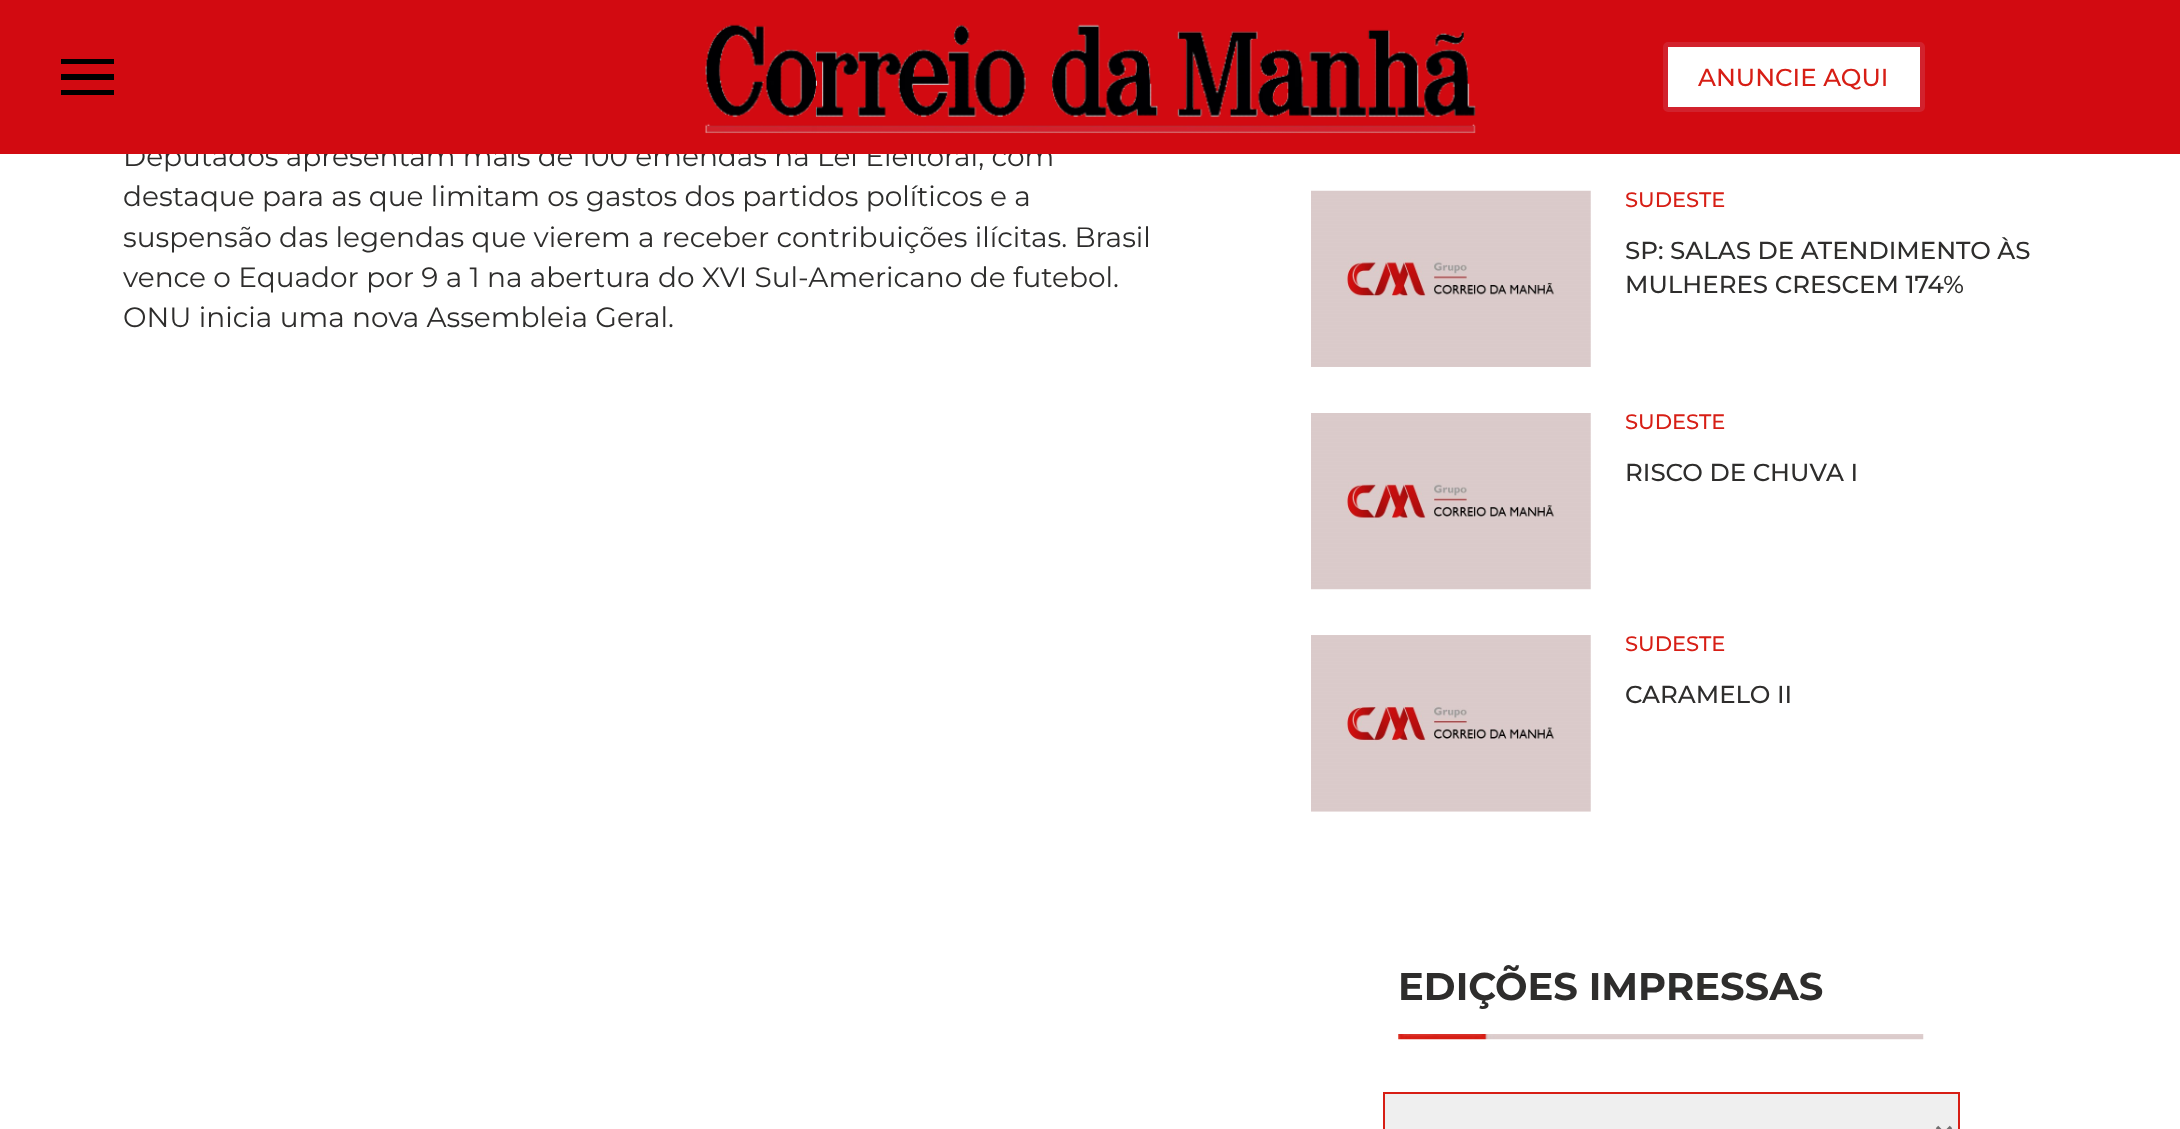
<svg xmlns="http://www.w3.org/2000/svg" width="2180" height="1129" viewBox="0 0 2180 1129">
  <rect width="100%" height="100%" fill="#ffffff"/>
  <text x="123" y="166" font-family="Montserrat" font-size="28" fill="#2e2d2c">Deputados apresentam mais de 100 emendas na Lei Eleitoral, com</text>
  <rect x="0" y="0" width="2180" height="154" fill="#d20a11"/>
  <path d="M61 59V64H114V59ZM61 74V80H114V74ZM61 90V95H114V90Z" fill="#000000"/>
  <image x="705" y="24" width="771" height="110" href="img1.png"/>
  <rect x="1665.5" y="44.5" width="257" height="65" rx="2.5" fill="#ffffff" stroke="#d2222d" stroke-width="5"/>
  <text x="1698" y="86" font-family="Montserrat" font-size="24.5" font-weight="500" fill="#d71e15">ANUNCIE AQUI</text>
  <text x="123" y="206" font-family="Montserrat" font-size="28" fill="#2e2d2c">destaque para as que limitam os gastos dos partidos políticos e a</text>
  <text x="123" y="247" font-family="Montserrat" font-size="28" fill="#2e2d2c">suspensão das legendas que vierem a receber contribuições ilícitas. Brasil</text>
  <text x="123" y="287" font-family="Montserrat" font-size="28" fill="#2e2d2c">vence o Equador por 9 a 1 na abertura do XVI Sul-Americano de futebol.</text>
  <text x="123" y="327" font-family="Montserrat" font-size="28" fill="#2e2d2c">ONU inicia uma nova Assembleia Geral.</text>
  <image x="1311" y="190" width="280" height="177" href="img2.png"/>
  <text x="1625" y="207" font-family="Montserrat" font-size="21" font-weight="500" fill="#d71e15">SUDESTE</text>
  <text x="1625" y="259" font-family="Montserrat" font-size="24.5" font-weight="500" fill="#2e2d2c">SP: SALAS DE ATENDIMENTO ÀS</text>
  <text x="1625" y="293" font-family="Montserrat" font-size="24.5" font-weight="500" fill="#2e2d2c">MULHERES CRESCEM 174%</text>
  <image x="1311" y="413" width="280" height="177" href="img3.png"/>
  <text x="1625" y="429" font-family="Montserrat" font-size="21" font-weight="500" fill="#d71e15">SUDESTE</text>
  <text x="1625" y="481" font-family="Montserrat" font-size="24.5" font-weight="500" fill="#2e2d2c">RISCO DE CHUVA I</text>
  <image x="1311" y="635" width="280" height="177" href="img4.png"/>
  <text x="1625" y="651" font-family="Montserrat" font-size="21" font-weight="500" fill="#d71e15">SUDESTE</text>
  <text x="1625" y="703" font-family="Montserrat" font-size="24.5" font-weight="500" fill="#2e2d2c">CARAMELO II</text>
  <text x="1398" y="1000" font-family="Montserrat" font-size="38.5" font-weight="bold" fill="#2e2d2c">EDIÇÕES IMPRESSAS</text>
  <image x="1398" y="1034" width="526" height="6" href="img5.png"/>
  <rect x="1384" y="1093" width="575" height="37" fill="#efefef" stroke="#d71e15" stroke-width="2"/>
  <path d="M1937 1127L1944 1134L1951 1127" fill="none" stroke="#707070" stroke-width="3.5"/>
</svg>
